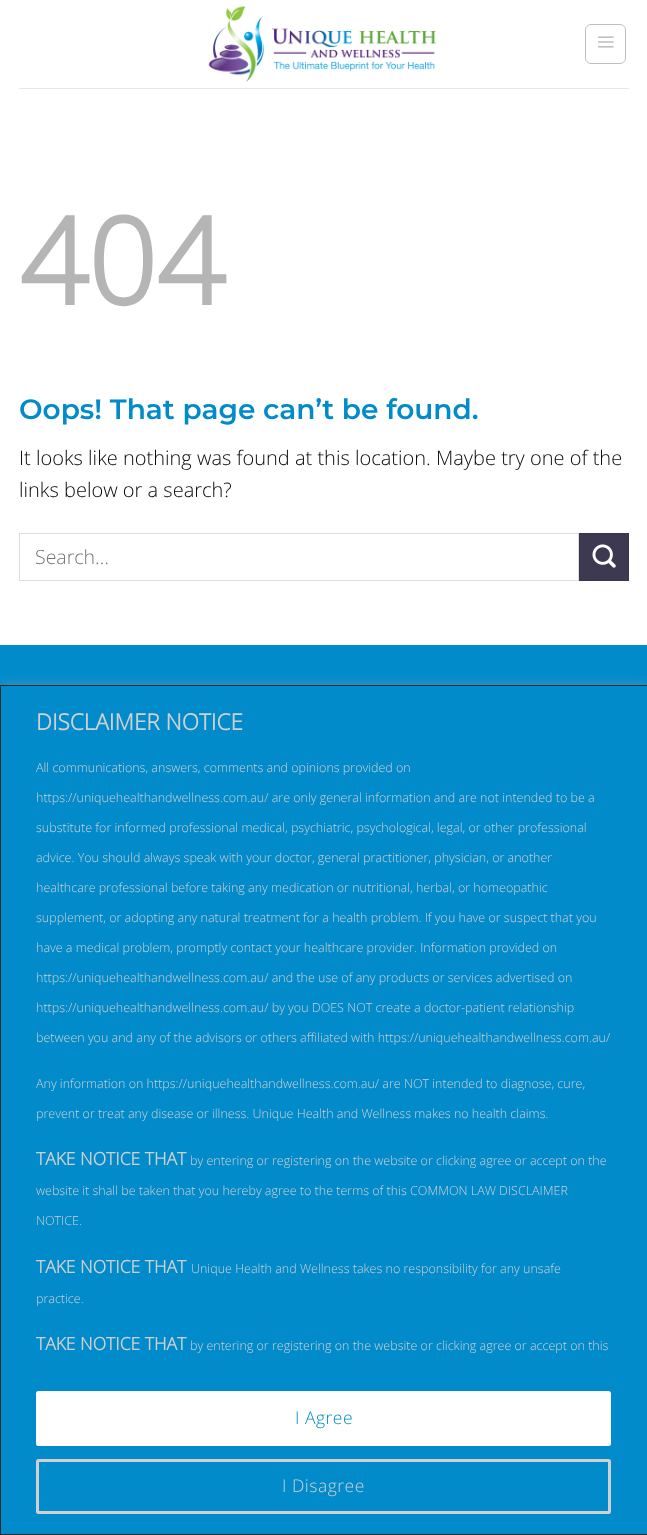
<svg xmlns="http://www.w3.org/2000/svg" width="647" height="1535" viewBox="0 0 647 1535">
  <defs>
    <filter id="blur1" x="-50%" y="-200%" width="200%" height="500%"><feGaussianBlur stdDeviation="6"/></filter>
  </defs>
  <rect width="100%" height="100%" fill="#ffffff"/>
  <image x="208" y="6" width="229" height="76" href="img1.png"/>
  <rect x="585.5" y="24.5" width="40" height="39" rx="5.5" fill="none" stroke="#c0c0c0"/>
  <image x="598" y="36" width="16" height="12" href="img2.png"/>
  <rect x="19" y="88" width="610" height="1" fill="#e7e6e6"/>
  <text x="19" y="305" font-family="Open Sans" font-size="120" font-weight="bold" fill="#b6b5b5">404</text>
  <text x="19" y="419" font-family="Montserrat" font-size="28" font-weight="600" fill="#018bcb">Oops! That page can’t be found.</text>
  <text x="19" y="465" font-family="Open Sans" font-size="20" font-weight="300" fill="#0a0909">It looks like nothing was found at this location. Maybe try one of the</text>
  <text x="19" y="497" font-family="Open Sans" font-size="20" font-weight="300" fill="#0a0909">links below or a search?</text>
  <rect x="19.5" y="533.5" width="559" height="47" fill="none" stroke="#dddddd"/>
  <text x="35" y="564" font-family="Open Sans" font-size="19.5" font-weight="300" fill="#757575">Search…</text>
  <rect x="579.5" y="533.5" width="49" height="47" fill="#3c3950" stroke="#39364c"/>
  <image x="592" y="544" width="24" height="24" href="img3.png"/>
  <rect x="0" y="645" width="647" height="40" fill="#018bcb"/>
  <rect x="0" y="684" width="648" height="850" fill="#acabab" fill-opacity="0.3" filter="url(#blur1)"/>
  <rect x="0.5" y="685.5" width="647" height="849" fill="#018bcb" stroke="#2a2a2a"/>
  <text x="36" y="730" font-family="Open Sans" font-size="22.5" font-weight="bold" fill="#d0d0d0">DISCLAIMER NOTICE</text>
  <text x="36" y="772" font-family="Open Sans" font-size="12.5" font-weight="300" fill="#d0d0d0">All communications, answers, comments and opinions provided on</text>
  <text x="36" y="802" font-family="Open Sans" font-size="12.5" font-weight="300" fill="#d0d0d0">https://uniquehealthandwellness.com.au/ are only general information and are not intended to be a</text>
  <text x="36" y="832" font-family="Open Sans" font-size="12.5" font-weight="300" fill="#d0d0d0">substitute for informed professional medical, psychiatric, psychological, legal, or other professional</text>
  <text x="36" y="862" font-family="Open Sans" font-size="12.5" font-weight="300" fill="#d0d0d0">advice. You should always speak with your doctor, general practitioner, physician, or another</text>
  <text x="36" y="892" font-family="Open Sans" font-size="12.5" font-weight="300" fill="#d0d0d0">healthcare professional before taking any medication or nutritional, herbal, or homeopathic</text>
  <text x="36" y="922" font-family="Open Sans" font-size="12.5" font-weight="300" fill="#d0d0d0">supplement, or adopting any natural treatment for a health problem. If you have or suspect that you</text>
  <text x="36" y="952" font-family="Open Sans" font-size="12.5" font-weight="300" fill="#d0d0d0">have a medical problem, promptly contact your healthcare provider. Information provided on</text>
  <text x="36" y="982" font-family="Open Sans" font-size="12.5" font-weight="300" fill="#d0d0d0">https://uniquehealthandwellness.com.au/ and the use of any products or services advertised on</text>
  <text x="36" y="1012" font-family="Open Sans" font-size="12.5" font-weight="300" fill="#d0d0d0">https://uniquehealthandwellness.com.au/ by you DOES NOT create a doctor-patient relationship</text>
  <text x="36" y="1042" font-family="Open Sans" font-size="12.5" font-weight="300" fill="#d0d0d0">between you and any of the advisors or others affiliated with https://uniquehealthandwellness.com.au/</text>
  <text x="36" y="1088" font-family="Open Sans" font-size="12.5" font-weight="300" fill="#d0d0d0">Any information on https://uniquehealthandwellness.com.au/ are NOT intended to diagnose, cure,</text>
  <text x="36" y="1118" font-family="Open Sans" font-size="12.5" font-weight="300" fill="#d0d0d0">prevent or treat any disease or illness. Unique Health and Wellness makes no health claims.</text>
  <text x="36" y="1165" font-family="Open Sans" font-size="17.5" font-weight="bold" fill="#d0d0d0">TAKE NOTICE THAT</text>
  <text x="190" y="1165" font-family="Open Sans" font-size="12.5" font-weight="300" fill="#d0d0d0">by entering or registering on the website or clicking agree or accept on the</text>
  <text x="36" y="1195" font-family="Open Sans" font-size="12.5" font-weight="300" fill="#d0d0d0">website it shall be taken that you hereby agree to the terms of this COMMON LAW DISCLAIMER</text>
  <text x="36" y="1225" font-family="Open Sans" font-size="12.5" font-weight="300" fill="#d0d0d0">NOTICE.</text>
  <text x="36" y="1273" font-family="Open Sans" font-size="17.5" font-weight="bold" fill="#d0d0d0">TAKE NOTICE THAT</text>
  <text x="191" y="1273" font-family="Open Sans" font-size="12.5" font-weight="300" fill="#d0d0d0">Unique Health and Wellness takes no responsibility for any unsafe</text>
  <text x="36" y="1303" font-family="Open Sans" font-size="12.5" font-weight="300" fill="#d0d0d0">practice.</text>
  <text x="36" y="1350" font-family="Open Sans" font-size="17.5" font-weight="bold" fill="#d0d0d0">TAKE NOTICE THAT</text>
  <text x="190" y="1350" font-family="Open Sans" font-size="12.5" font-weight="300" fill="#d0d0d0">by entering or registering on the website or clicking agree or accept on this</text>
  <rect x="37.5" y="1392.5" width="572" height="52" rx="1" fill="#ffffff" stroke="#ffffff" stroke-width="3"/>
  <text x="295" y="1424" font-family="Open Sans" font-size="17.5" font-weight="300" letter-spacing="0.5" fill="#018bcb">I Agree</text>
  <rect x="37.5" y="1460.5" width="572" height="52" rx="1" fill="none" stroke="#d0d0d0" stroke-width="3"/>
  <text x="282" y="1492" font-family="Open Sans" font-size="17.5" font-weight="300" letter-spacing="0.5" fill="#d0d0d0">I Disagree</text>
</svg>
